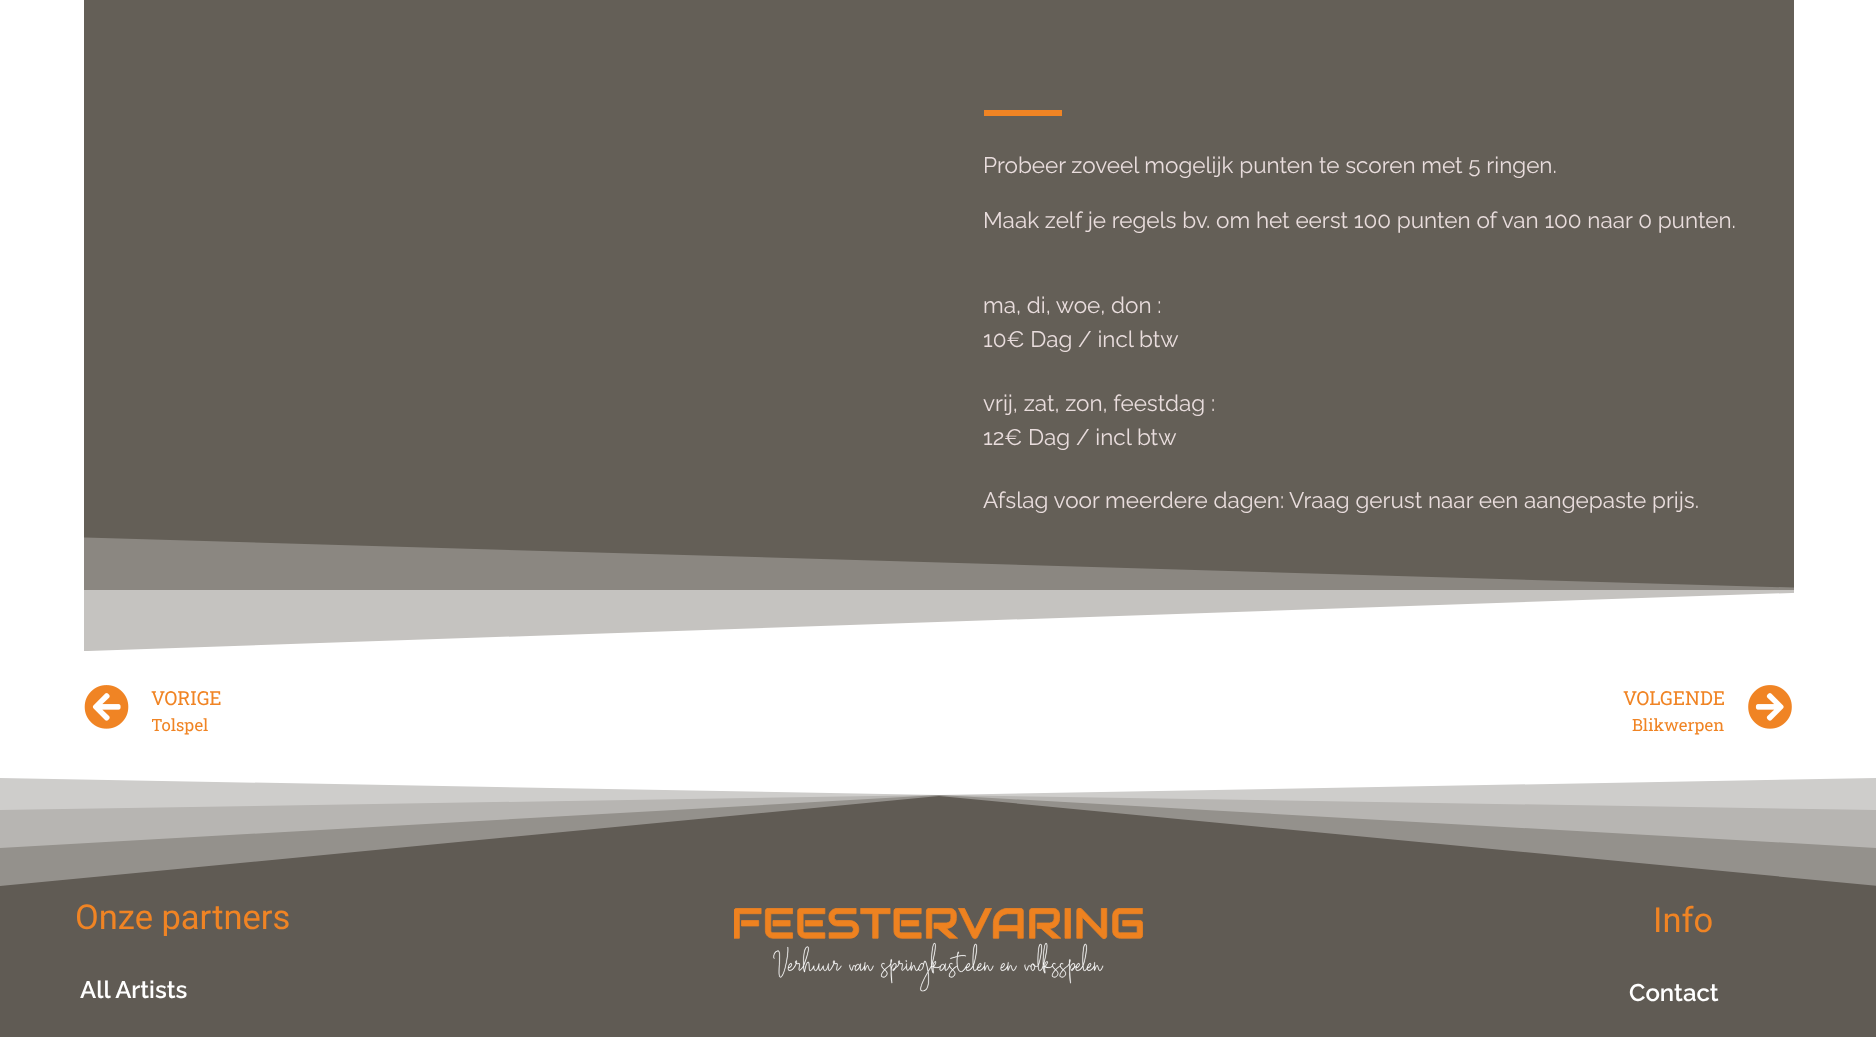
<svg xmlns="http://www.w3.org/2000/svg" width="1876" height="1037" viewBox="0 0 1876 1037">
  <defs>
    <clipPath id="clip1"><rect x="0" y="533" width="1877" height="120"/></clipPath>
    <clipPath id="clip2"><rect x="152" y="713" width="69" height="25"/></clipPath>
  </defs>
  <rect width="100%" height="100%" fill="#ffffff"/>
  <rect x="84" y="0" width="1710" height="590" fill="#645f57"/>
  <rect x="84" y="590" width="855" height="61" fill="#b2afab"/>
  <rect x="939" y="590" width="855" height="32" fill="#b2afab"/>
  <rect x="984" y="110" width="78" height="6" fill="#f08424"/>
  <text x="983" y="173" font-family="Raleway" font-size="22.5" fill="#e9dddd">Probeer zoveel mogelijk punten te scoren met 5 ringen.</text>
  <text x="983" y="228" font-family="Raleway" font-size="22.5" fill="#e9dddd">Maak zelf je regels bv. om het eerst 100 punten of van 100 naar 0 punten.</text>
  <text x="983" y="313" font-family="Raleway" font-size="22.5" fill="#e9dddd">ma, di, woe, don :</text>
  <text x="983" y="347" font-family="Raleway" font-size="22.5" fill="#e9dddd">10€ Dag / incl btw</text>
  <text x="983" y="411" font-family="Raleway" font-size="22.5" fill="#e9dddd">vrij, zat, zon, feestdag :</text>
  <text x="983" y="445" font-family="Raleway" font-size="22.5" fill="#e9dddd">12€ Dag / incl btw</text>
  <text x="983" y="508" font-family="Raleway" font-size="22.5" fill="#e9dddd">Afslag voor meerdere dagen: Vraag gerust naar een aangepaste prijs.</text>
  <g clip-path="url(#clip1)">
    <path d="M0 654H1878V590Z" fill="#ffffff"/>
    <path d="M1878 654H0V535L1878 590Z" fill="#ffffff" fill-opacity="0.25"/>
  </g>
  <image x="84" y="685" width="45" height="44" href="img1.png"/>
  <text x="151" y="705" font-family="Roboto Slab" font-size="19.25" fill="#f08424">VORIGE</text>
  <g clip-path="url(#clip2)">
    <text x="151" y="731" font-family="Roboto Slab" font-size="16.75" fill="#f08424">Tolspel</text>
  </g>
  <text x="1623" y="705" font-family="Roboto Slab" font-size="19.25" fill="#f08424">VOLGENDE</text>
  <text x="1632" y="731" font-family="Roboto Slab" font-size="16.75" fill="#f08424">Blikwerpen</text>
  <image x="1748" y="685" width="44" height="44" href="img2.png"/>
  <rect x="0" y="778" width="1876" height="259" fill="#605b54"/>
  <path d="M0 771V886L939 796L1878 886V771Z" fill="#ffffff" fill-opacity="0.33"/>
  <path d="M0 771V848L939 795L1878 848V771Z" fill="#ffffff" fill-opacity="0.33"/>
  <path d="M0 771V810L939 795L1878 810V771Z" fill="#ffffff" fill-opacity="0.33"/>
  <path d="M0 771V778L939 795L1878 778V771Z" fill="#ffffff"/>
  <text x="75" y="929" font-family="Roboto" font-size="34.5" fill="#f08424">Onze partners</text>
  <text x="80" y="998" font-family="Raleway" font-size="24" font-weight="600" fill="#ffffff">All Artists</text>
  <image x="734" y="908" width="409" height="84" href="img3.png"/>
  <text x="1653" y="932" font-family="Roboto" font-size="34.5" fill="#f08424">Info</text>
  <text x="1629" y="1001" font-family="Raleway" font-size="24" font-weight="600" fill="#ffffff">Contact</text>
</svg>
